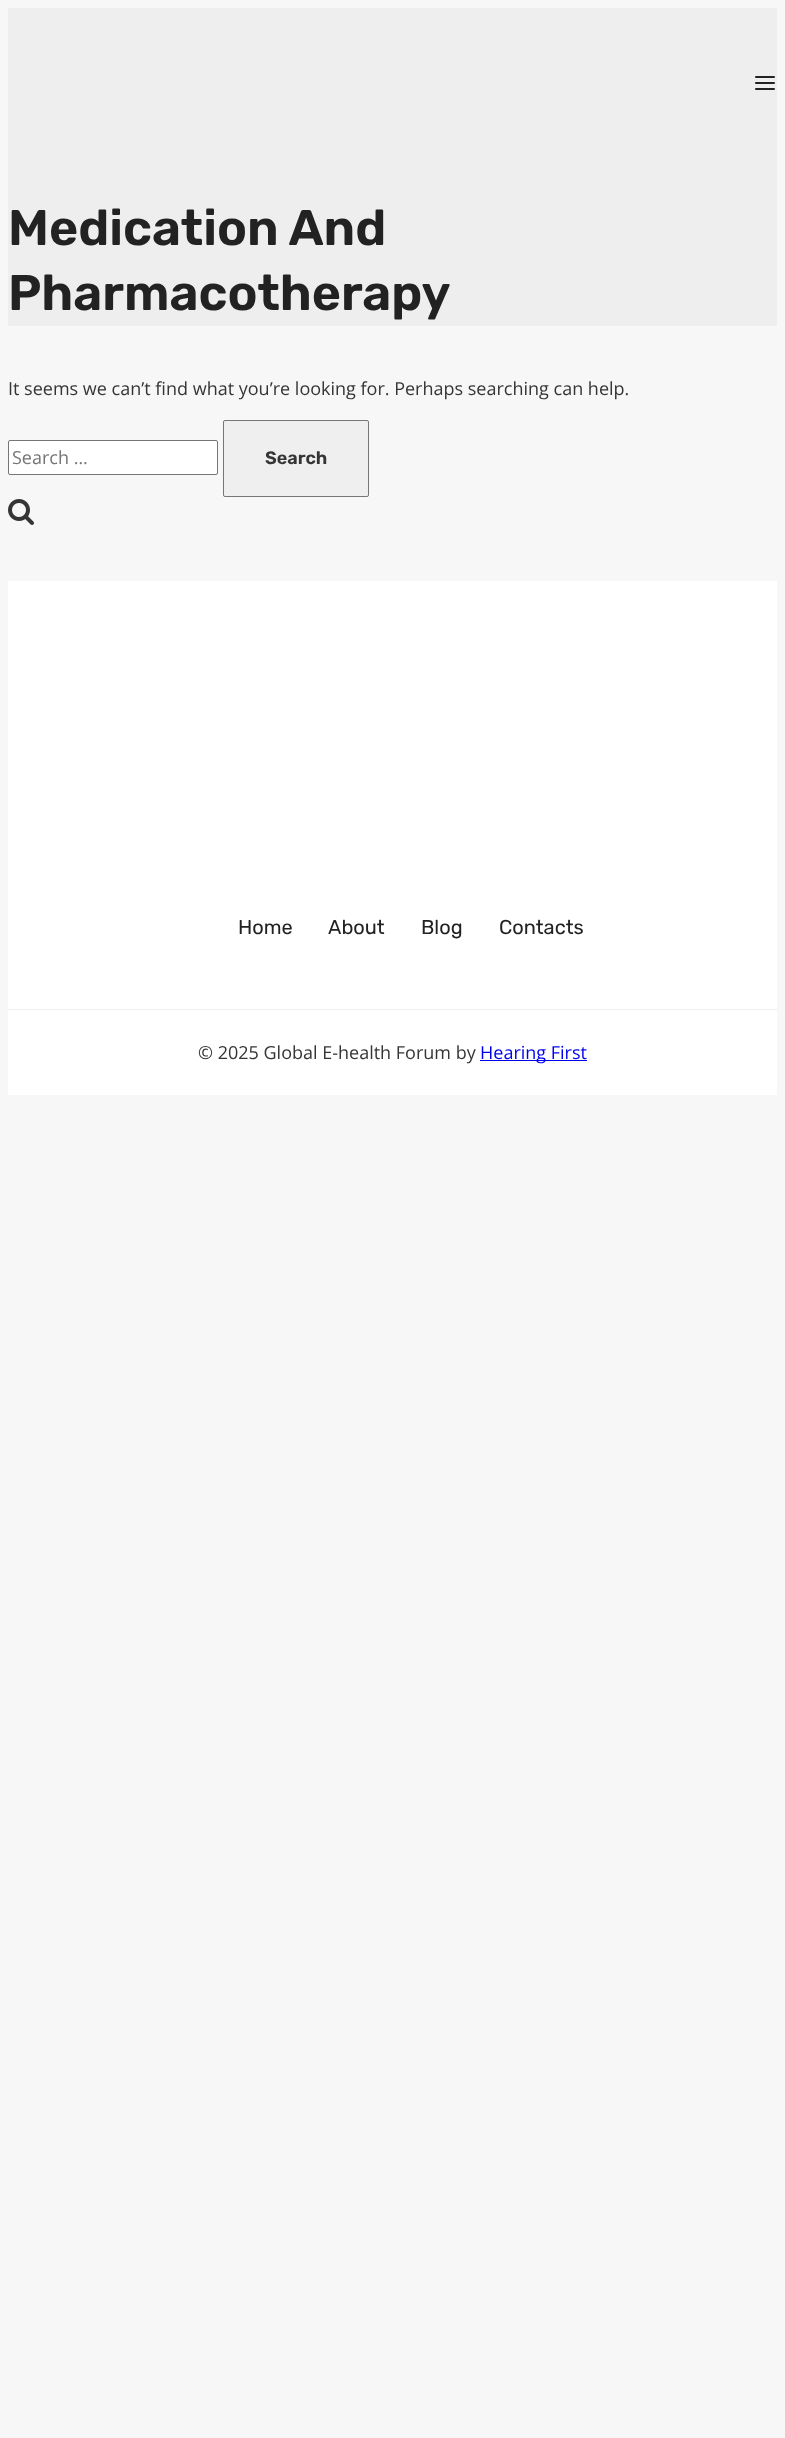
<svg xmlns="http://www.w3.org/2000/svg" width="785" height="2438" viewBox="0 0 785 2438">
  <rect width="100%" height="100%" fill="#f7f7f7"/>
  <rect x="8" y="8" width="769" height="318" fill="#eeeeee"/>
  <image x="755" y="76" width="20" height="14" href="img1.png"/>
  <text x="8" y="245" font-family="Rubik" font-size="50" font-weight="600" fill="#222222">Medication And</text>
  <text x="8" y="310" font-family="Rubik" font-size="50" font-weight="600" fill="#222222">Pharmacotherapy</text>
  <text x="8" y="395" font-family="Open Sans" font-size="18" fill="#353535">It seems we can’t find what you’re looking for. Perhaps searching can help.</text>
  <rect x="8.5" y="440.5" width="209" height="34" rx="1.5" fill="#ffffff" stroke="#767676"/>
  <text x="12" y="464" font-family="Open Sans" font-size="18" fill="#757575">Search …</text>
  <rect x="223.5" y="420.5" width="145" height="76" rx="1.5" fill="#efefef" stroke="#767676"/>
  <text x="265" y="464" font-family="Rubik" font-size="18" font-weight="600" fill="#353535">Search</text>
  <image x="8" y="499" width="26" height="26" href="img2.png"/>
  <rect x="8" y="581" width="769" height="514" fill="#ffffff"/>
  <text x="238" y="934" font-family="Rubik" font-size="20" fill="#222222">Home</text>
  <text x="328" y="934" font-family="Rubik" font-size="20" fill="#222222">About</text>
  <text x="421" y="934" font-family="Rubik" font-size="20" fill="#222222">Blog</text>
  <text x="499" y="934" font-family="Rubik" font-size="20" fill="#222222">Contacts</text>
  <rect x="8" y="1009" width="769" height="1" fill="#eeeeee"/>
  <text x="198" y="1059" font-family="Open Sans" font-size="18" fill="#353535">© 2025 Global E-health Forum by</text>
  <rect x="480" y="1060" width="107" height="1" fill="#0000ee"/>
  <text x="480" y="1059" font-family="Open Sans" font-size="18" fill="#0000ee">Hearing First</text>
</svg>
